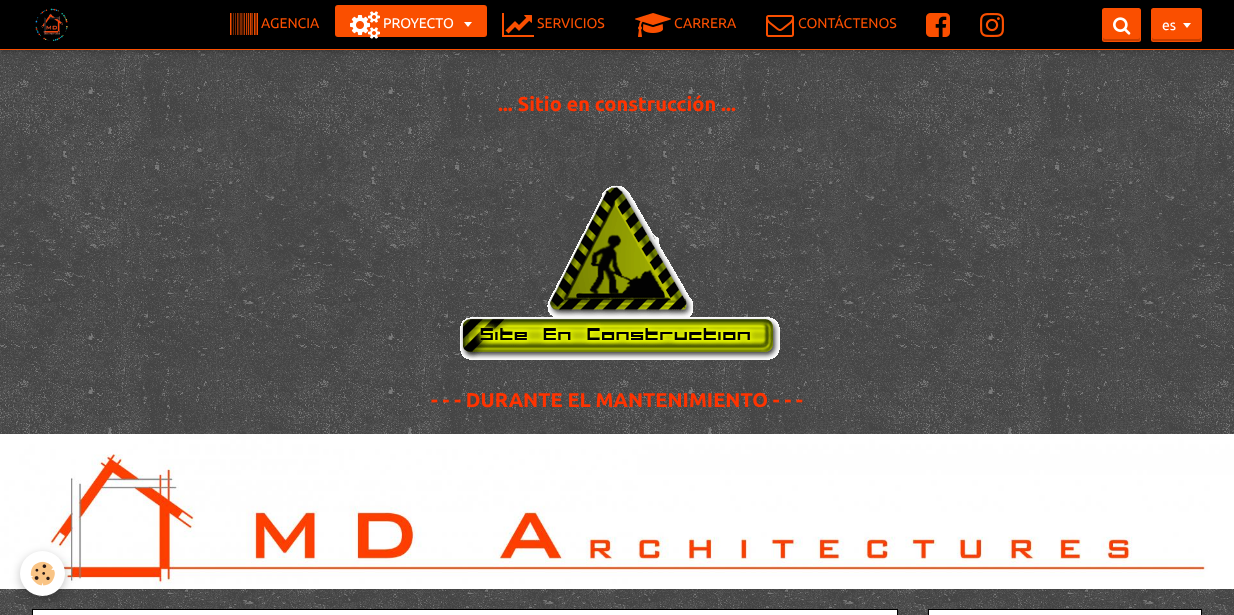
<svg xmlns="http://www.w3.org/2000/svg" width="1234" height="615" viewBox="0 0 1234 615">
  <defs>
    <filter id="blur1" x="-50%" y="-200%" width="200%" height="500%"><feGaussianBlur stdDeviation="2.5"/></filter>
    <filter id="blur2" x="-50%" y="-200%" width="200%" height="500%"><feGaussianBlur stdDeviation="5"/></filter>
  </defs>
  <rect width="100%" height="100%" fill="#444444"/>
  <image x="0" y="50" width="1234" height="565" href="img1.png"/>
  <rect x="0" y="2" width="1234" height="50" fill="#000000" fill-opacity="0.2" filter="url(#blur1)"/>
  <rect x="0" y="0" width="1234" height="49" fill="#000000"/>
  <rect x="0" y="49" width="1234" height="1" fill="#fa4f00"/>
  <image x="35" y="8" width="33" height="33" href="img2.png"/>
  <rect x="335" y="5" width="152" height="32" rx="3" fill="#fa4f00"/>
  <image x="230" y="13" width="28" height="22" href="img3.png"/>
  <text x="261" y="28" font-family="Ubuntu" font-size="14" fill="#fa4f00">AGENCIA</text>
  <image x="350" y="11" width="30" height="28" href="img4.png"/>
  <text x="383" y="28" font-family="Ubuntu" font-size="14" fill="#ffffff">PROYECTO</text>
  <path d="M464 22H472L468 27Z" fill="#ffffff"/>
  <image x="502" y="13" width="32" height="24" href="img5.png"/>
  <text x="537" y="28" font-family="Ubuntu" font-size="14" fill="#fa4f00">SERVICIOS</text>
  <image x="635" y="13" width="36" height="24" href="img6.png"/>
  <text x="674" y="28" font-family="Ubuntu" font-size="14" fill="#fa4f00">CARRERA</text>
  <image x="766" y="15" width="28" height="22" href="img7.png"/>
  <text x="798" y="28" font-family="Ubuntu" font-size="14" fill="#fa4f00">CONTÁCTENOS</text>
  <image x="926" y="13" width="24" height="24" href="img8.png"/>
  <image x="980" y="13" width="24" height="24" href="img9.png"/>
  <rect x="1102" y="8" width="39" height="34" rx="2.5" fill="#fa4f00"/>
  <path d="M1103 37C1103 42.5 1104 41 1110 41H1133C1139 41 1140 42.5 1140 37C1140 38 1139 39 1138 39H1105C1104 39 1103 38 1103 37Z" fill="#c83f00"/>
  <image x="1113" y="17" width="18" height="18" href="img10.png"/>
  <rect x="1151" y="8" width="51" height="34" rx="2.5" fill="#fa4f00"/>
  <path d="M1152 37C1152 43 1154 41 1161 41H1192C1199 41 1201 43 1201 37C1201 38 1200 39 1199 39H1154C1153 39 1152 38 1152 37Z" fill="#c83f00"/>
  <text x="1162" y="30" font-family="Ubuntu" font-size="14" fill="#ffffff">es</text>
  <path d="M1183 23H1191L1187 28Z" fill="#ffffff"/>
  <text x="498" y="111" font-family="Ubuntu" font-size="20" font-weight="bold" fill="#ff3300">... Sitio en construcción ...</text>
  <image x="460" y="186" width="320" height="174" href="img11.png"/>
  <text x="431" y="407" font-family="Ubuntu" font-size="20" font-weight="bold" fill="#ff3300">- - - DURANTE EL MANTENIMIENTO - - -</text>
  <image x="0" y="434" width="1234" height="155" href="img12.png"/>
  <rect x="32.5" y="609.5" width="865" height="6" fill="#ffffff" stroke="#000000"/>
  <rect x="20" y="554" width="45" height="45" rx="22.5" fill="#000000" fill-opacity="0.24" filter="url(#blur2)"/>
  <circle cx="42.5" cy="573.5" r="22.5" fill="#ffffff"/>
  <image x="30" y="561" width="25" height="25" href="img13.png"/>
  <rect x="928.5" y="609.5" width="273" height="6" fill="#ffffff" stroke="#000000"/>
</svg>
